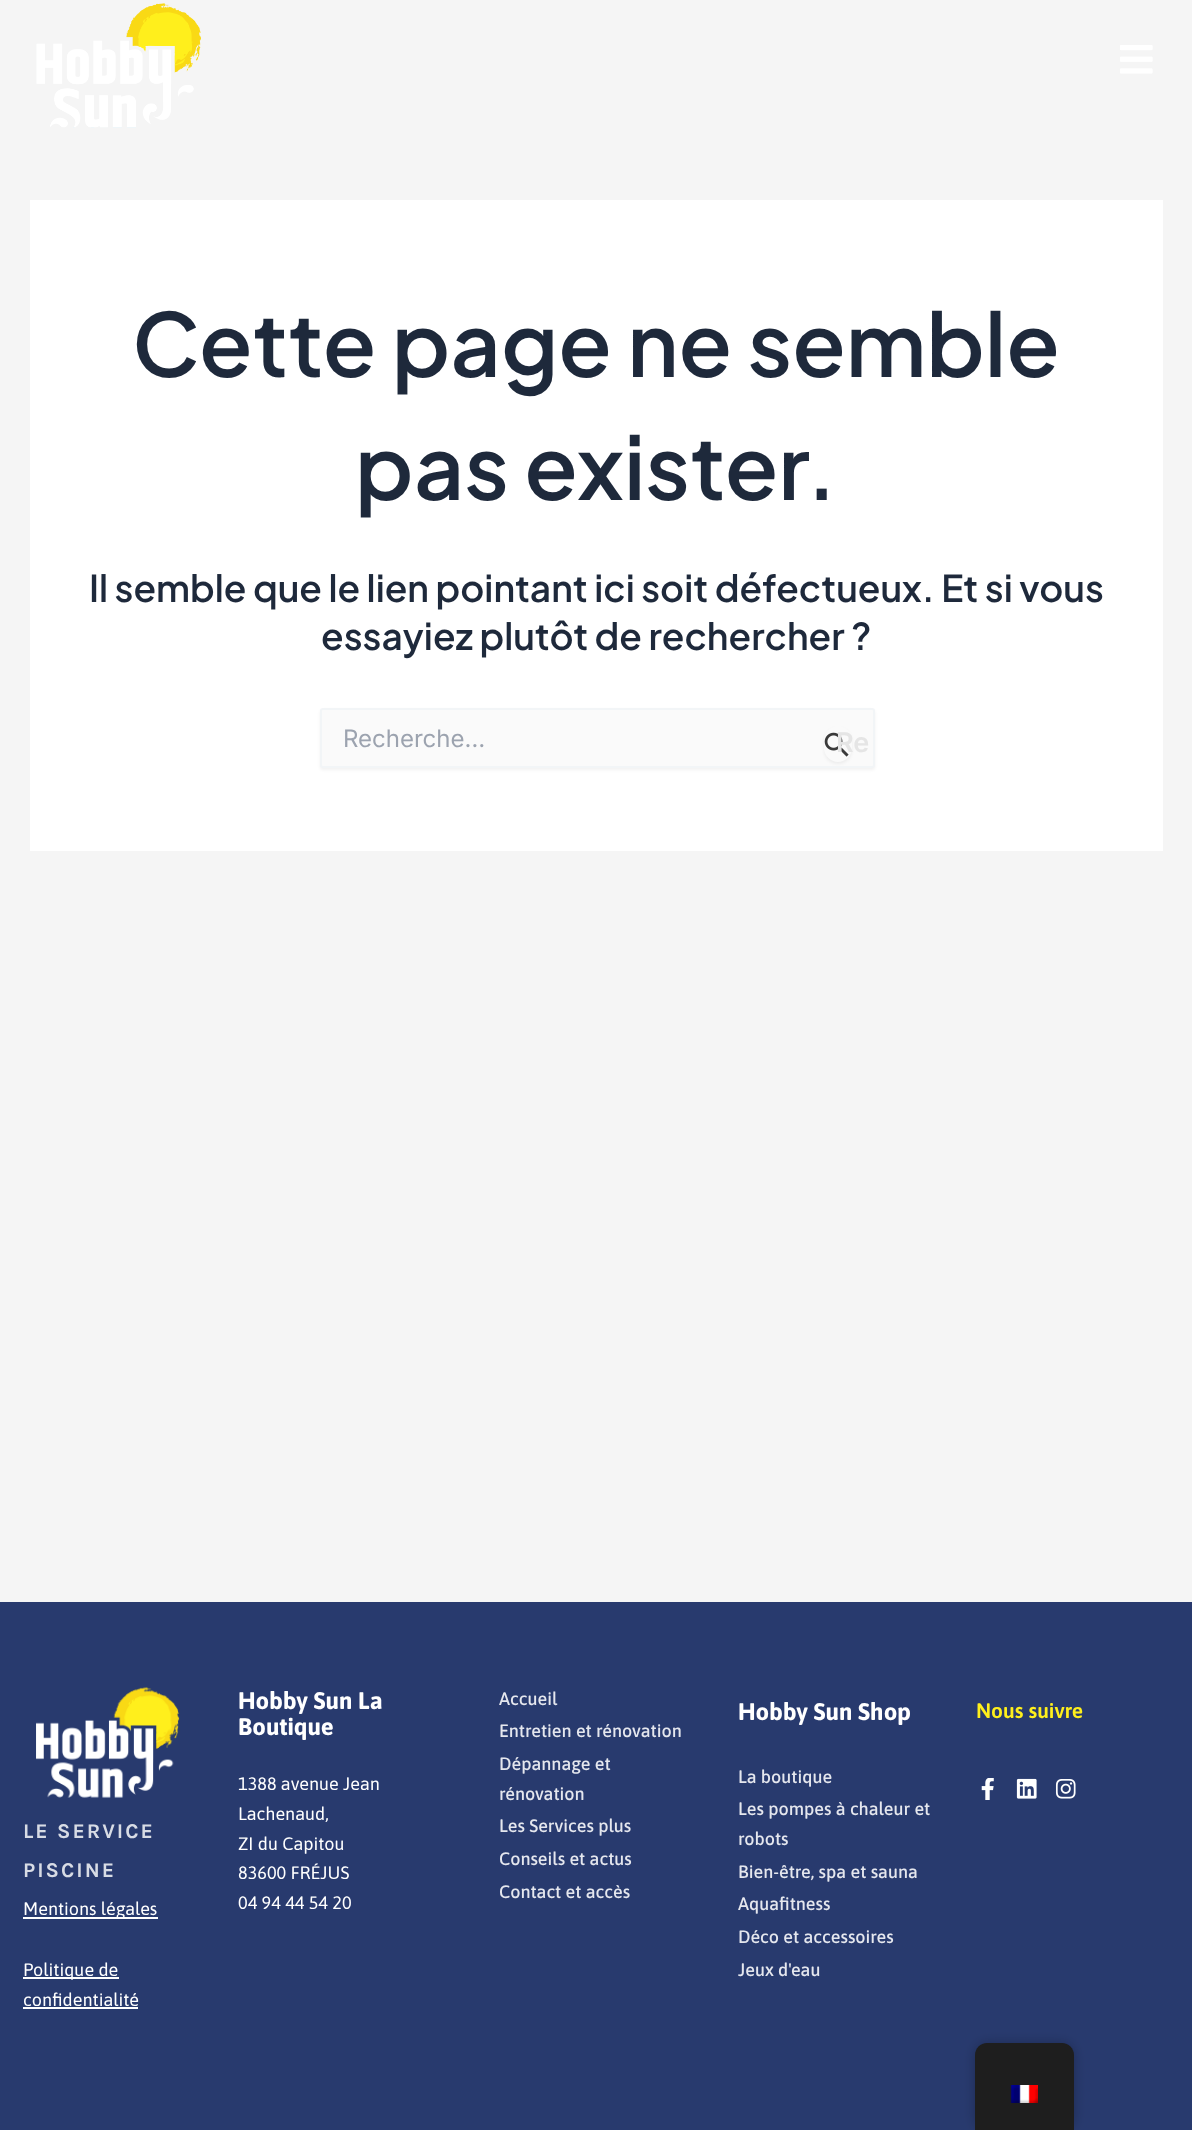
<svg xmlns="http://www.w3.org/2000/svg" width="1192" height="2130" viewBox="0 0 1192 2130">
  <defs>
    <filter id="blur1" x="-50%" y="-200%" width="200%" height="500%"><feGaussianBlur stdDeviation="1.5"/></filter>
    <clipPath id="clip1"><path d="M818 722H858V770H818ZM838 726C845.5 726 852 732.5 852 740V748C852 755.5 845.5 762 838 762C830.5 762 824 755.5 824 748V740C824 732.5 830.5 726 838 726Z" clip-rule="evenodd"/></clipPath>
    <filter id="blur2" x="-50%" y="-200%" width="200%" height="500%"><feGaussianBlur stdDeviation="6"/></filter>
  </defs>
  <rect width="100%" height="100%" fill="#f5f5f5"/>
  <image x="36" y="3" width="165" height="125" href="img1.png"/>
  <image x="1120" y="45" width="33" height="29" href="img2.png"/>
  <rect x="30" y="200" width="1133" height="651" fill="#ffffff"/>
  <text x="132" y="377" font-family="Plus Jakarta Sans" font-size="87.5" font-weight="600" fill="#1e293b">Cette page ne semble</text>
  <text x="355" y="500" font-family="Plus Jakarta Sans" font-size="87.5" font-weight="600" fill="#1e293b">pas exister.</text>
  <text x="89" y="602" font-family="Plus Jakarta Sans" font-size="36.95" font-weight="600" fill="#1e293b">Il semble que le lien pointant ici soit défectueux. Et si vous</text>
  <text x="321" y="650" font-family="Plus Jakarta Sans" font-size="36.95" font-weight="600" fill="#1e293b">essayiez plutôt de rechercher ?</text>
  <rect x="320" y="710" width="555" height="60" rx="3" fill="#000000" fill-opacity="0.05" filter="url(#blur1)"/>
  <rect x="321" y="709" width="553" height="58" rx="2" fill="#fafafa" stroke="#f2f5f7" stroke-width="2"/>
  <text x="343" y="747" font-family="Inter" font-size="24" fill="#9ca3af">Recherche…</text>
  <g clip-path="url(#clip1)">
    <rect x="824" y="728" width="28" height="36" rx="14" fill="#000000" fill-opacity="0.05" filter="url(#blur1)"/>
  </g>
  <image x="824" y="732" width="25" height="25" href="img3.png"/>
  <text x="836" y="752" font-family="Inter" font-size="27" font-weight="600" fill="#e5e5e5">Re</text>
  <rect x="0" y="1602" width="1192" height="528" fill="#283a6e"/>
  <text x="238" y="1709" font-family="Asap" font-size="24" font-weight="bold" fill="#ffffff">Hobby Sun La</text>
  <text x="238" y="1735" font-family="Asap" font-size="24" font-weight="bold" fill="#ffffff">Boutique</text>
  <text x="238" y="1790" font-family="Asap" font-size="18" fill="#ffffff">1388 avenue Jean</text>
  <text x="238" y="1820" font-family="Asap" font-size="18" fill="#ffffff">Lachenaud,</text>
  <text x="238" y="1850" font-family="Asap" font-size="18" fill="#ffffff">ZI du Capitou</text>
  <text x="238" y="1879" font-family="Asap" font-size="18" fill="#ffffff">83600 FRÉJUS</text>
  <text x="238" y="1909" font-family="Asap" font-size="18" fill="#ffffff">04 94 44 54 20</text>
  <text x="499" y="1705" font-family="Asap" font-size="18" font-weight="500" fill="#e5e7ee">Accueil</text>
  <text x="499" y="1737" font-family="Asap" font-size="18" font-weight="500" fill="#e5e7ee">Entretien et rénovation</text>
  <text x="499" y="1770" font-family="Asap" font-size="18" font-weight="500" fill="#e5e7ee">Dépannage et</text>
  <text x="499" y="1800" font-family="Asap" font-size="18" font-weight="500" fill="#e5e7ee">rénovation</text>
  <text x="499" y="1832" font-family="Asap" font-size="18" font-weight="500" fill="#e5e7ee">Les Services plus</text>
  <text x="499" y="1865" font-family="Asap" font-size="18" font-weight="500" fill="#e5e7ee">Conseils et actus</text>
  <text x="499" y="1898" font-family="Asap" font-size="18" font-weight="500" fill="#e5e7ee">Contact et accès</text>
  <text x="738" y="1720" font-family="Asap" font-size="24" font-weight="bold" fill="#ffffff">Hobby Sun Shop</text>
  <text x="738" y="1783" font-family="Asap" font-size="18" font-weight="500" fill="#e5e7ee">La boutique</text>
  <text x="738" y="1815" font-family="Asap" font-size="18" font-weight="500" fill="#e5e7ee">Les pompes à chaleur et</text>
  <text x="738" y="1845" font-family="Asap" font-size="18" font-weight="500" fill="#e5e7ee">robots</text>
  <text x="738" y="1878" font-family="Asap" font-size="18" font-weight="500" fill="#e5e7ee">Bien-être, spa et sauna</text>
  <text x="738" y="1910" font-family="Asap" font-size="18" font-weight="500" fill="#e5e7ee">Aquafitness</text>
  <text x="738" y="1943" font-family="Asap" font-size="18" font-weight="500" fill="#e5e7ee">Déco et accessoires</text>
  <text x="738" y="1976" font-family="Asap" font-size="18" font-weight="500" fill="#e5e7ee">Jeux d'eau</text>
  <text x="976" y="1718" font-family="Asap" font-size="21" font-weight="600" fill="#ffef1c">Nous suivre</text>
  <image x="981" y="1778" width="13" height="22" href="img4.png"/>
  <image x="1016" y="1778" width="21" height="21" href="img5.png"/>
  <image x="1055" y="1779" width="21" height="20" href="img6.png"/>
  <image x="36" y="1687" width="144" height="111" href="img7.png"/>
  <text x="23" y="1838" font-family="Karla" font-size="21" font-weight="bold" letter-spacing="2" fill="#d8dce5">LE SERVICE</text>
  <text x="23" y="1877" font-family="Karla" font-size="21" font-weight="bold" letter-spacing="2" fill="#d8dce5">PISCINE</text>
  <rect x="23" y="1917" width="135" height="2" fill="#ffffff"/>
  <text x="23" y="1915" font-family="Asap" font-size="18" fill="#ffffff">Mentions légales</text>
  <rect x="23" y="1977" width="96" height="2" fill="#ffffff"/>
  <text x="23" y="1976" font-family="Asap" font-size="18" fill="#ffffff">Politique de</text>
  <text x="23" y="2006" font-family="Asap" font-size="18" fill="#ffffff">confidentialité</text>
  <rect x="23" y="2007" width="115" height="2" fill="#ffffff"/>
  <rect x="975" y="2043" width="99" height="87" rx="12" fill="#000000" fill-opacity="0.25" filter="url(#blur2)"/>
  <path d="M987 2043H1062C1068.5 2043 1074 2048.5 1074 2055V2130H975V2055C975 2048.5 980.5 2043 987 2043Z" fill="#1e1e1e"/>
  <image x="1010" y="2085" width="28" height="18" href="img8.png"/>
</svg>
